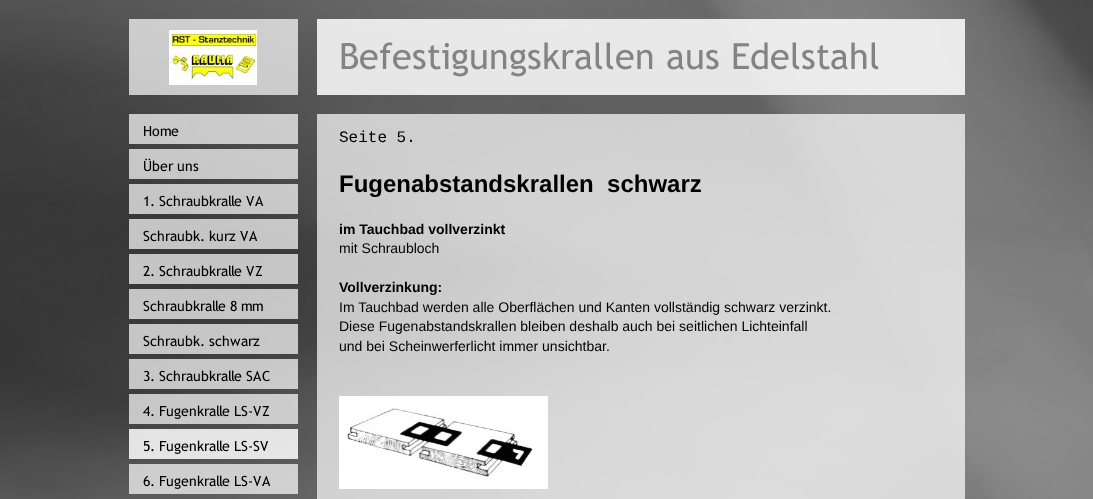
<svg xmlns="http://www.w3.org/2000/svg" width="1093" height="499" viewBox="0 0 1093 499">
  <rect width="100%" height="100%" fill="#ffffff"/>
  <image x="0" y="0" width="1093" height="499" href="img1.png"/>
  <rect x="129" y="19" width="169" height="76" fill="#ffffff" fill-opacity="0.71"/>
  <image x="169" y="30" width="88" height="55" href="img2.png"/>
  <rect x="317" y="19" width="648" height="76" fill="#ffffff" fill-opacity="0.85"/>
  <image x="341" y="42" width="538" height="35" href="img3.png"/>
  <image x="129" y="114" width="169" height="30" href="img4.png"/>
  <image x="129" y="149" width="169" height="30" href="img5.png"/>
  <image x="129" y="184" width="169" height="30" href="img6.png"/>
  <image x="129" y="219" width="169" height="30" href="img7.png"/>
  <image x="129" y="254" width="169" height="30" href="img8.png"/>
  <image x="129" y="289" width="169" height="30" href="img9.png"/>
  <image x="129" y="324" width="169" height="30" href="img10.png"/>
  <image x="129" y="359" width="169" height="30" href="img11.png"/>
  <image x="129" y="394" width="169" height="30" href="img12.png"/>
  <image x="129" y="429" width="169" height="30" href="img13.png"/>
  <image x="129" y="464" width="169" height="30" href="img14.png"/>
  <rect x="317" y="114" width="648" height="385" fill="#ffffff" fill-opacity="0.71"/>
  <text x="339" y="142" font-family="Liberation Mono" font-size="16" fill="#000000">Seite 5.</text>
  <text x="339" y="192" font-family="Liberation Sans" font-size="24" font-weight="bold" fill="#000000" xml:space="preserve">Fugenabstandskrallen  schwarz</text>
  <text x="339" y="234" font-family="Liberation Sans" font-size="14" font-weight="bold" fill="#000000">im Tauchbad vollverzinkt</text>
  <text x="339" y="253" font-family="Liberation Sans" font-size="14" fill="#000000">mit Schraubloch</text>
  <text x="339" y="292" font-family="Liberation Sans" font-size="14" font-weight="bold" fill="#000000">Vollverzinkung:</text>
  <text x="339" y="312" font-family="Liberation Sans" font-size="14" fill="#000000">Im Tauchbad werden alle Oberflächen und Kanten vollständig schwarz verzinkt.</text>
  <text x="339" y="331" font-family="Liberation Sans" font-size="14" fill="#000000">Diese Fugenabstandskrallen bleiben deshalb auch bei seitlichen Lichteinfall</text>
  <text x="339" y="351" font-family="Liberation Sans" font-size="14" fill="#000000">und bei Scheinwerferlicht immer unsichtbar.</text>
  <image x="339" y="396" width="209" height="93" href="img15.png"/>
</svg>
